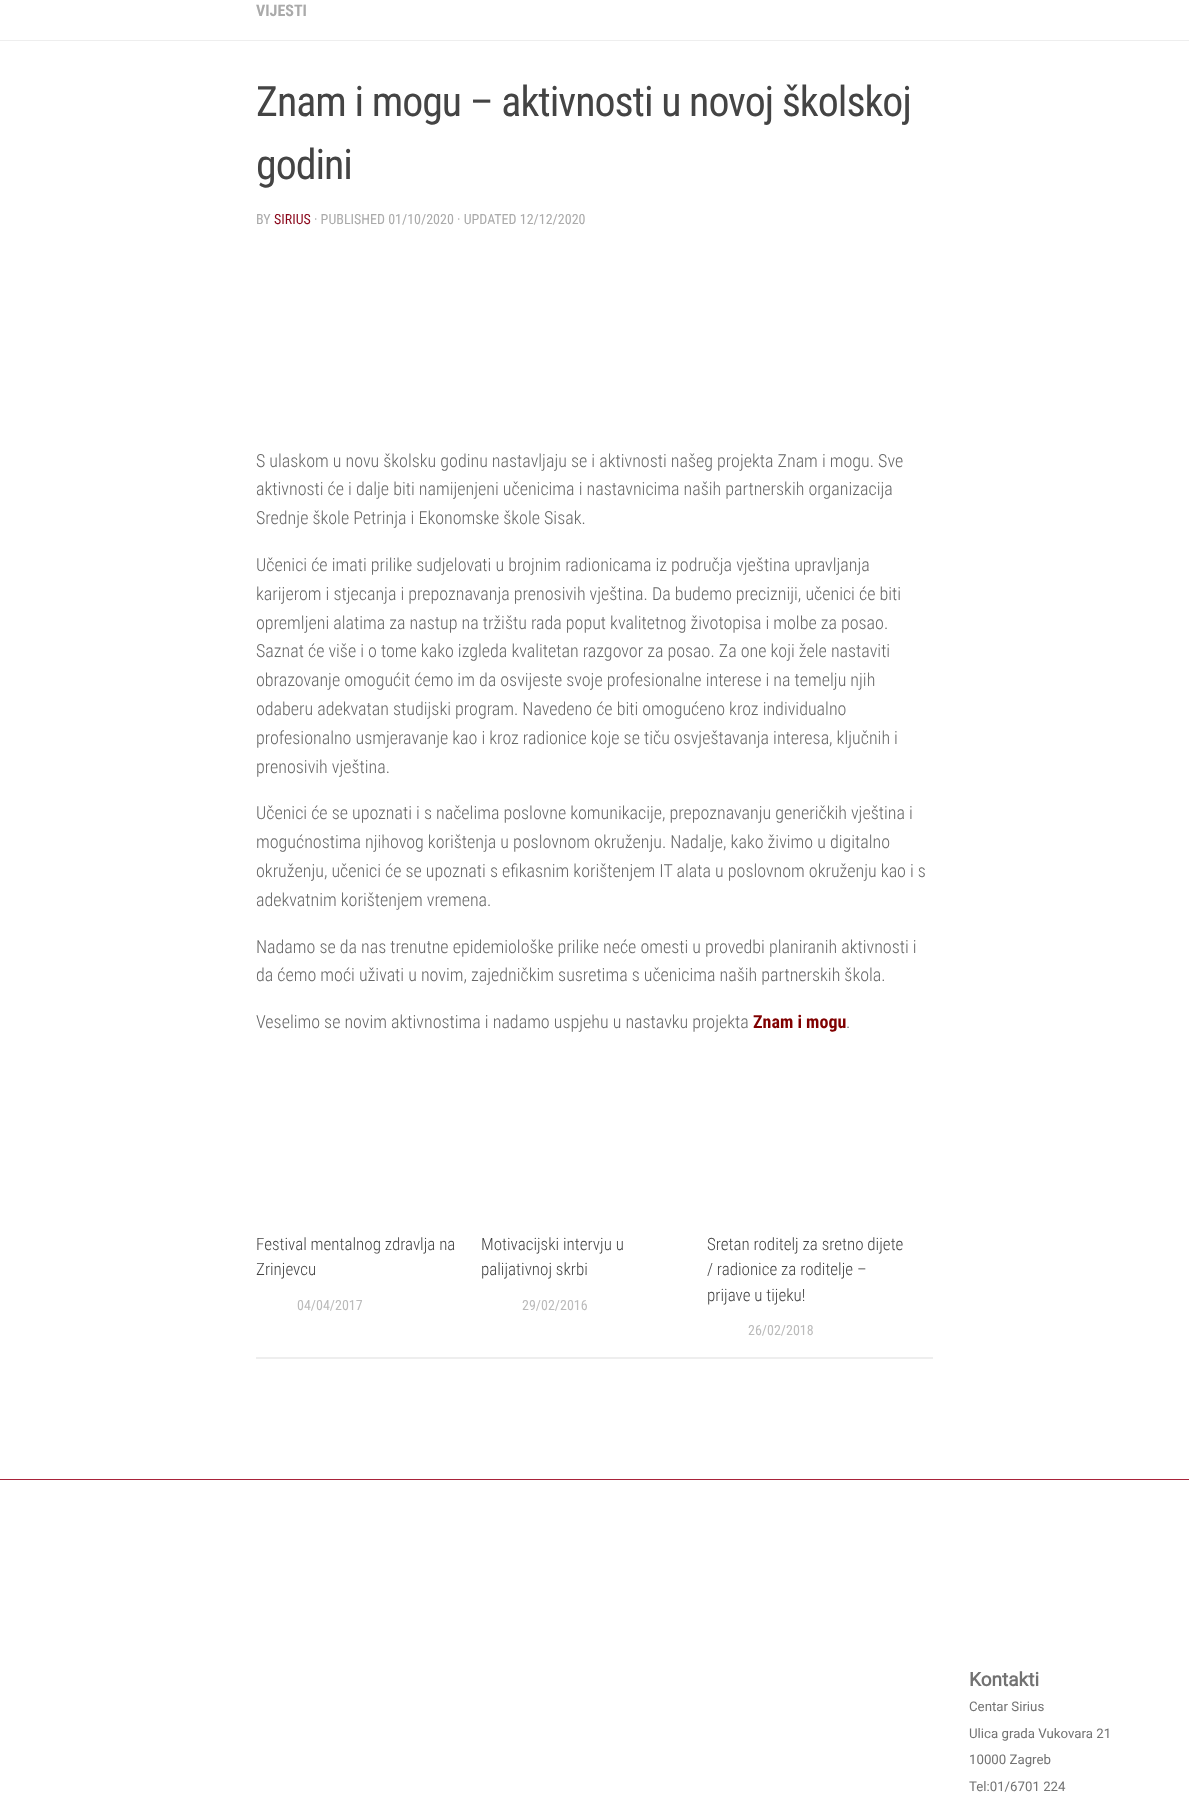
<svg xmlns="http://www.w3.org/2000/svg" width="1189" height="1813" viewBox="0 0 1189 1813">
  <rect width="100%" height="100%" fill="#ffffff"/>
  <rect x="0" y="40" width="1189" height="1" fill="#eeeeee"/>
  <text x="256" y="16" font-family="Roboto Condensed" font-size="16" font-weight="bold" fill="#aaaaaa">VIJESTI</text>
  <text x="256" y="116" font-family="Roboto Condensed" font-size="41.9" letter-spacing="-1" fill="#444444">Znam i mogu – aktivnosti u novoj školskoj</text>
  <text x="256" y="179" font-family="Roboto Condensed" font-size="41.9" letter-spacing="-1" fill="#444444">godini</text>
  <text x="256" y="224" font-family="Roboto Condensed" font-size="14" fill="#aaaaaa">BY</text>
  <text x="274" y="224" font-family="Roboto Condensed" font-size="14" fill="#8b081c">SIRIUS</text>
  <text x="314" y="224" font-family="Roboto Condensed" font-size="14" fill="#aaaaaa">· PUBLISHED 01/10/2020 · UPDATED 12/12/2020</text>
  <text x="256" y="467" font-family="Roboto Condensed" font-size="18" font-weight="300" fill="#666666">S ulaskom u novu školsku godinu nastavljaju se i aktivnosti našeg projekta Znam i mogu. Sve</text>
  <text x="256" y="495" font-family="Roboto Condensed" font-size="18" font-weight="300" fill="#666666">aktivnosti će i dalje biti namijenjeni učenicima i nastavnicima naših partnerskih organizacija</text>
  <text x="256" y="524" font-family="Roboto Condensed" font-size="18" font-weight="300" fill="#666666">Srednje škole Petrinja i Ekonomske škole Sisak.</text>
  <text x="256" y="571" font-family="Roboto Condensed" font-size="18" font-weight="300" fill="#666666">Učenici će imati prilike sudjelovati u brojnim radionicama iz područja vještina upravljanja</text>
  <text x="256" y="600" font-family="Roboto Condensed" font-size="18" font-weight="300" fill="#666666">karijerom i stjecanja i prepoznavanja prenosivih vještina. Da budemo precizniji, učenici će biti</text>
  <text x="256" y="629" font-family="Roboto Condensed" font-size="18" font-weight="300" fill="#666666">opremljeni alatima za nastup na tržištu rada poput kvalitetnog životopisa i molbe za posao.</text>
  <text x="256" y="657" font-family="Roboto Condensed" font-size="18" font-weight="300" fill="#666666">Saznat će više i o tome kako izgleda kvalitetan razgovor za posao. Za one koji žele nastaviti</text>
  <text x="256" y="686" font-family="Roboto Condensed" font-size="18" font-weight="300" fill="#666666">obrazovanje omogućit ćemo im da osvijeste svoje profesionalne interese i na temelju njih</text>
  <text x="256" y="715" font-family="Roboto Condensed" font-size="18" font-weight="300" fill="#666666">odaberu adekvatan studijski program. Navedeno će biti omogućeno kroz individualno</text>
  <text x="256" y="744" font-family="Roboto Condensed" font-size="18" font-weight="300" fill="#666666">profesionalno usmjeravanje kao i kroz radionice koje se tiču osvještavanja interesa, ključnih i</text>
  <text x="256" y="773" font-family="Roboto Condensed" font-size="18" font-weight="300" fill="#666666">prenosivih vještina.</text>
  <text x="256" y="819" font-family="Roboto Condensed" font-size="18" font-weight="300" fill="#666666">Učenici će se upoznati i s načelima poslovne komunikacije, prepoznavanju generičkih vještina i</text>
  <text x="256" y="848" font-family="Roboto Condensed" font-size="18" font-weight="300" fill="#666666">mogućnostima njihovog korištenja u poslovnom okruženju. Nadalje, kako živimo u digitalno</text>
  <text x="256" y="877" font-family="Roboto Condensed" font-size="18" font-weight="300" fill="#666666">okruženju, učenici će se upoznati s efikasnim korištenjem IT alata u poslovnom okruženju kao i s</text>
  <text x="256" y="906" font-family="Roboto Condensed" font-size="18" font-weight="300" fill="#666666">adekvatnim korištenjem vremena.</text>
  <text x="256" y="953" font-family="Roboto Condensed" font-size="18" font-weight="300" fill="#666666">Nadamo se da nas trenutne epidemiološke prilike neće omesti u provedbi planiranih aktivnosti i</text>
  <text x="256" y="981" font-family="Roboto Condensed" font-size="18" font-weight="300" fill="#666666">da ćemo moći uživati u novim, zajedničkim susretima s učenicima naših partnerskih škola.</text>
  <text x="256" y="1028" font-family="Roboto Condensed" font-size="18" font-weight="300" fill="#666666">Veselimo se novim aktivnostima i nadamo uspjehu u nastavku projekta</text>
  <text x="753" y="1028" font-family="Roboto Condensed" font-size="18" font-weight="bold" fill="#800000">Znam i mogu</text>
  <text x="846" y="1028" font-family="Roboto Condensed" font-size="18" font-weight="300" fill="#666666">.</text>
  <rect x="256" y="1357" width="677" height="2" fill="#eeeeee"/>
  <text x="256" y="1250" font-family="Roboto Condensed" font-size="17" font-weight="300" fill="#444444">Festival mentalnog zdravlja na</text>
  <text x="256" y="1275" font-family="Roboto Condensed" font-size="17" font-weight="300" fill="#444444">Zrinjevcu</text>
  <text x="297" y="1310" font-family="Roboto Condensed" font-size="14" fill="#bbbbbb">04/04/2017</text>
  <text x="481" y="1250" font-family="Roboto Condensed" font-size="17" font-weight="300" fill="#444444">Motivacijski intervju u</text>
  <text x="481" y="1275" font-family="Roboto Condensed" font-size="17" font-weight="300" fill="#444444">palijativnoj skrbi</text>
  <text x="522" y="1310" font-family="Roboto Condensed" font-size="14" fill="#bbbbbb">29/02/2016</text>
  <text x="707" y="1250" font-family="Roboto Condensed" font-size="17" font-weight="300" fill="#444444">Sretan roditelj za sretno dijete</text>
  <text x="707" y="1275" font-family="Roboto Condensed" font-size="17" font-weight="300" fill="#444444">/ radionice za roditelje –</text>
  <text x="707" y="1301" font-family="Roboto Condensed" font-size="17" font-weight="300" fill="#444444">prijave u tijeku!</text>
  <text x="748" y="1335" font-family="Roboto Condensed" font-size="14" fill="#bbbbbb">26/02/2018</text>
  <rect x="0" y="1479" width="1189" height="1" fill="#a8233a"/>
  <text x="969" y="1686" font-family="Roboto" font-size="19" font-weight="bold" fill="#727272">Kontakti</text>
  <text x="969" y="1711" font-family="Roboto" font-size="13.25" fill="#727272">Centar Sirius</text>
  <text x="969" y="1738" font-family="Roboto" font-size="13.25" fill="#727272">Ulica grada Vukovara 21</text>
  <text x="969" y="1764" font-family="Roboto" font-size="13.25" fill="#727272">10000 Zagreb</text>
  <text x="969" y="1791" font-family="Roboto" font-size="13.25" fill="#727272">Tel:01/6701 224</text>
</svg>
